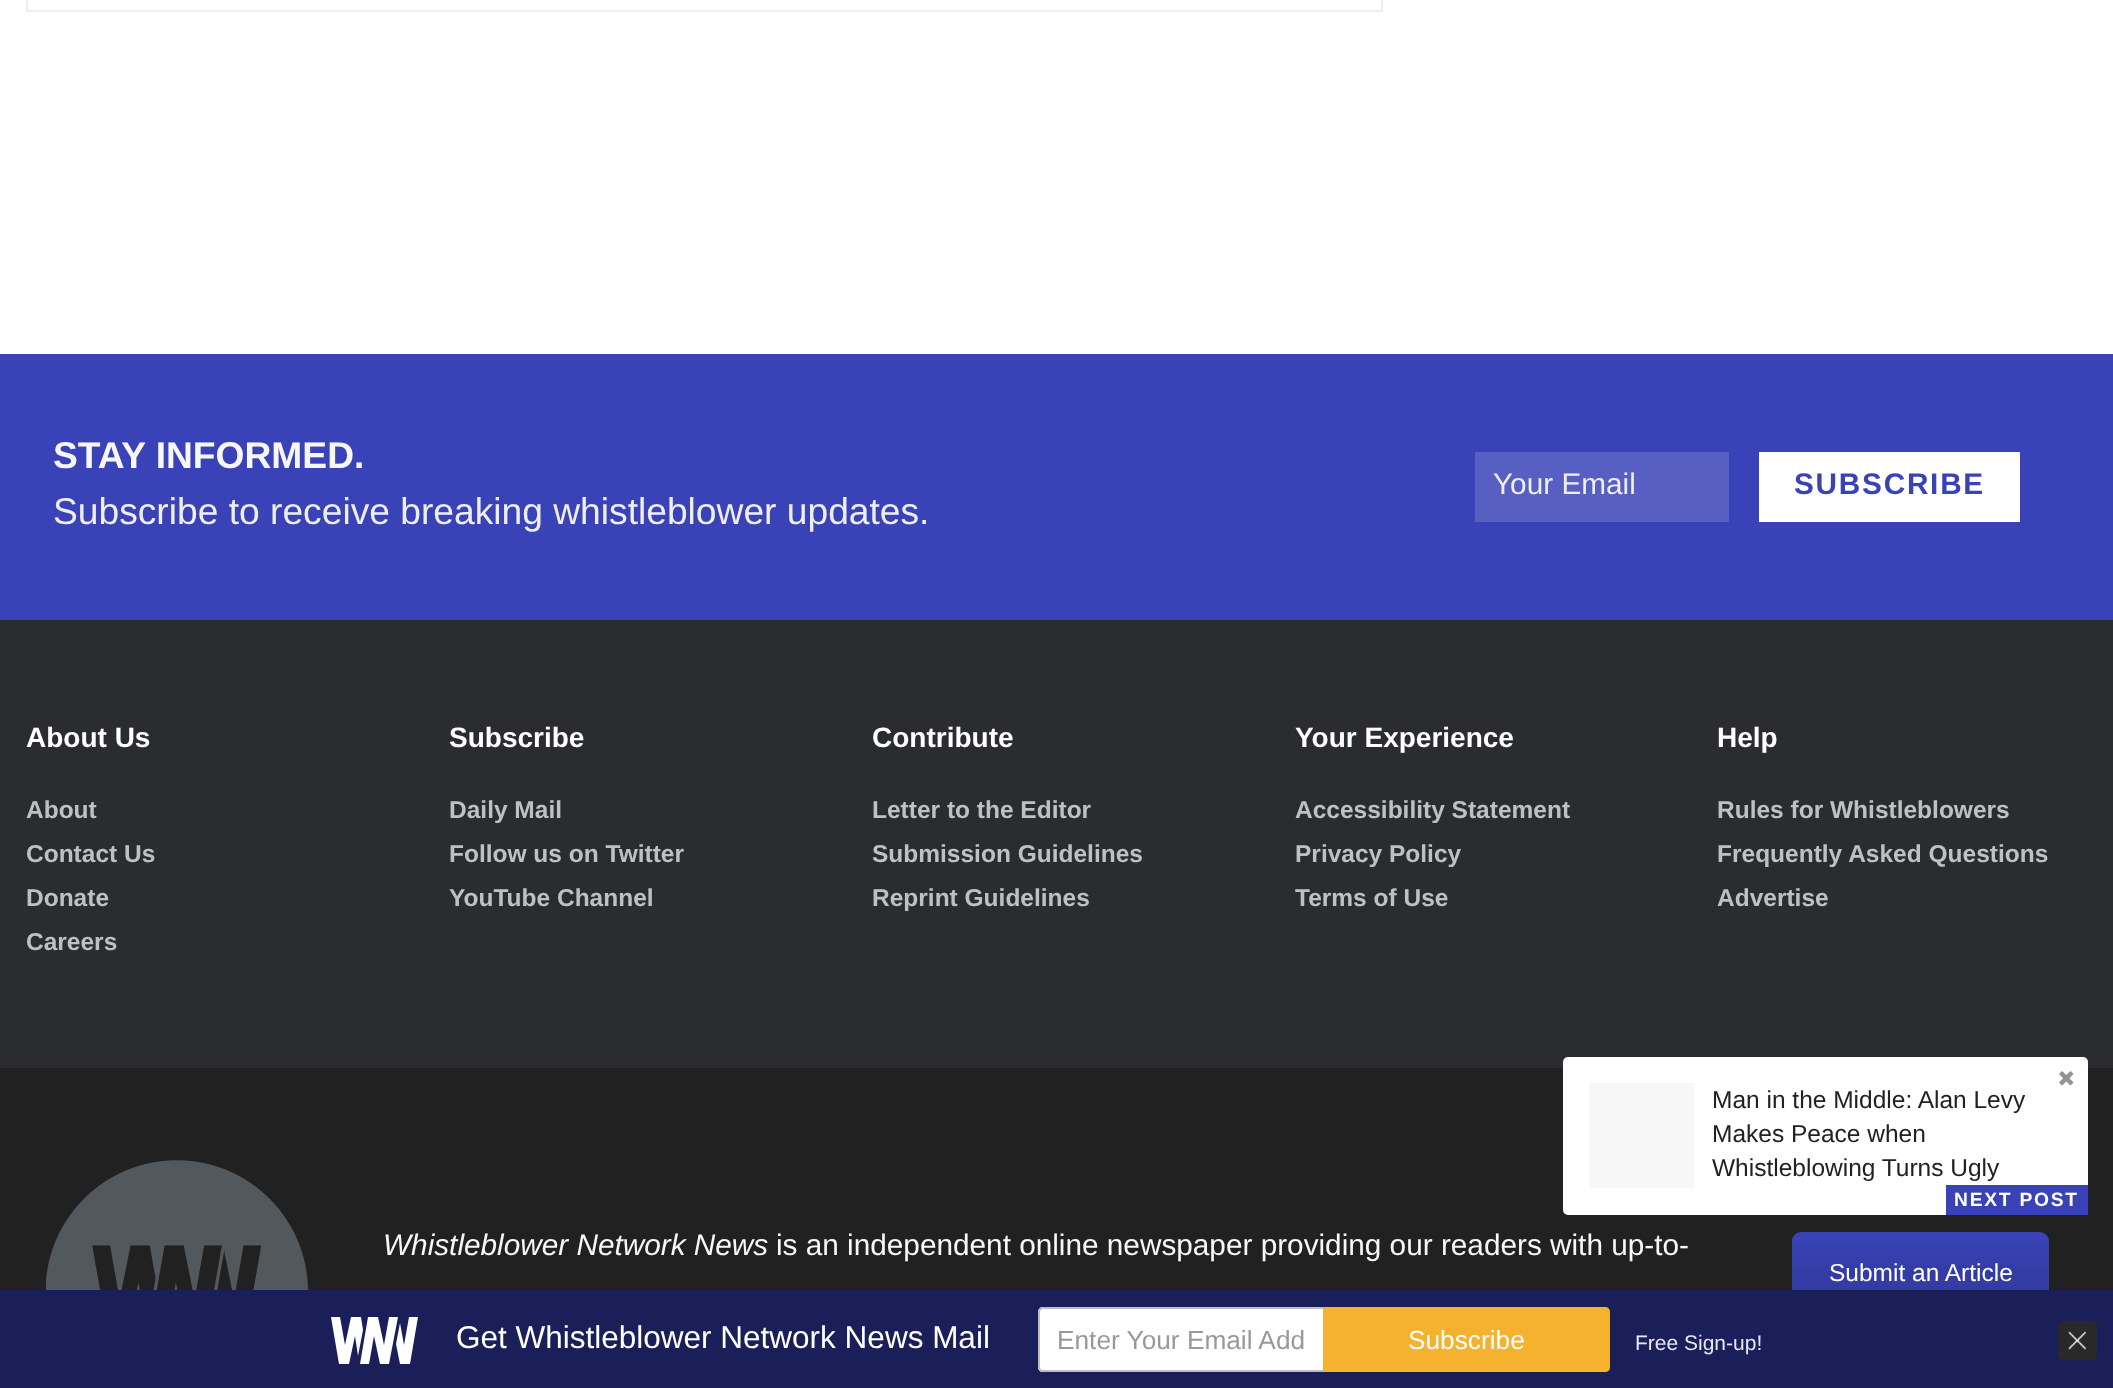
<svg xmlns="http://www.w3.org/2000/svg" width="2113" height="1388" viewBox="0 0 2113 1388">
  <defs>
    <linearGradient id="g1" gradientUnits="userSpaceOnUse" x1="2048" y1="1234" x2="2048" y2="1311"><stop offset="0" stop-color="#000000" stop-opacity="0"/><stop offset="0.5" stop-color="#000000" stop-opacity="0.1"/><stop offset="1" stop-color="#000000" stop-opacity="0.1"/></linearGradient>
  </defs>
  <rect width="100%" height="100%" fill="#ffffff"/>
  <rect x="0" y="354" width="2113" height="266" fill="#3943b7"/>
  <text x="53" y="468" font-family="Liberation Sans" font-size="37.2" font-weight="bold" fill="#f7f7f7">STAY INFORMED.</text>
  <text x="53" y="524" font-family="Liberation Sans" font-size="37.2" fill="#eeeeee">Subscribe to receive breaking whistleblower updates.</text>
  <rect x="1475" y="452" width="254" height="70" fill="#575fc2"/>
  <text x="1493" y="494" font-family="Liberation Sans" font-size="29.75" fill="#eeeeee">Your Email</text>
  <rect x="1759" y="452" width="261" height="70" fill="#ffffff"/>
  <text x="1794" y="494" font-family="Liberation Sans" font-size="29.75" font-weight="bold" letter-spacing="1.75" fill="#3943b7">SUBSCRIBE</text>
  <rect x="0" y="620" width="2113" height="448" fill="#2b2c30"/>
  <text x="26" y="747" font-family="Liberation Sans" font-size="28" font-weight="bold" fill="#ffffff">About Us</text>
  <text x="26" y="818" font-family="Liberation Sans" font-size="24.5" font-weight="bold" fill="#bfc0c1">About</text>
  <text x="26" y="862" font-family="Liberation Sans" font-size="24.5" font-weight="bold" fill="#bfc0c1">Contact Us</text>
  <text x="26" y="906" font-family="Liberation Sans" font-size="24.5" font-weight="bold" fill="#bfc0c1">Donate</text>
  <text x="26" y="950" font-family="Liberation Sans" font-size="24.5" font-weight="bold" fill="#bfc0c1">Careers</text>
  <text x="449" y="747" font-family="Liberation Sans" font-size="28" font-weight="bold" fill="#ffffff">Subscribe</text>
  <text x="449" y="818" font-family="Liberation Sans" font-size="24.5" font-weight="bold" fill="#bfc0c1">Daily Mail</text>
  <text x="449" y="862" font-family="Liberation Sans" font-size="24.5" font-weight="bold" fill="#bfc0c1">Follow us on Twitter</text>
  <text x="449" y="906" font-family="Liberation Sans" font-size="24.5" font-weight="bold" fill="#bfc0c1">YouTube Channel</text>
  <text x="872" y="747" font-family="Liberation Sans" font-size="28" font-weight="bold" fill="#ffffff">Contribute</text>
  <text x="872" y="818" font-family="Liberation Sans" font-size="24.5" font-weight="bold" fill="#bfc0c1">Letter to the Editor</text>
  <text x="872" y="862" font-family="Liberation Sans" font-size="24.5" font-weight="bold" fill="#bfc0c1">Submission Guidelines</text>
  <text x="872" y="906" font-family="Liberation Sans" font-size="24.5" font-weight="bold" fill="#bfc0c1">Reprint Guidelines</text>
  <text x="1295" y="747" font-family="Liberation Sans" font-size="28" font-weight="bold" fill="#ffffff">Your Experience</text>
  <text x="1295" y="818" font-family="Liberation Sans" font-size="24.5" font-weight="bold" fill="#bfc0c1">Accessibility Statement</text>
  <text x="1295" y="862" font-family="Liberation Sans" font-size="24.5" font-weight="bold" fill="#bfc0c1">Privacy Policy</text>
  <text x="1295" y="906" font-family="Liberation Sans" font-size="24.5" font-weight="bold" fill="#bfc0c1">Terms of Use</text>
  <text x="1717" y="747" font-family="Liberation Sans" font-size="28" font-weight="bold" fill="#ffffff">Help</text>
  <text x="1717" y="818" font-family="Liberation Sans" font-size="24.5" font-weight="bold" fill="#bfc0c1">Rules for Whistleblowers</text>
  <text x="1717" y="862" font-family="Liberation Sans" font-size="24.5" font-weight="bold" fill="#bfc0c1">Frequently Asked Questions</text>
  <text x="1717" y="906" font-family="Liberation Sans" font-size="24.5" font-weight="bold" fill="#bfc0c1">Advertise</text>
  <rect x="0" y="1068" width="2113" height="222" fill="#212121"/>
  <image x="46" y="1160" width="262" height="130" href="img1.png"/>
  <text x="383" y="1255" font-family="Liberation Sans" font-size="29.75" font-style="italic" fill="#f7f7f7">Whistleblower Network News</text>
  <text x="776" y="1255" font-family="Liberation Sans" font-size="29.75" fill="#f7f7f7">is an independent online newspaper providing our readers with up-to-</text>
  <rect x="1792" y="1232" width="257" height="81" rx="9" fill="#3943b7"/>
  <rect x="1792" y="1242" width="257" height="48" fill="url(#g1)"/>
  <text x="1829" y="1281" font-family="Liberation Sans" font-size="24.5" fill="#ffffff">Submit an Article</text>
  <rect x="27" y="-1" width="1355" height="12" fill="none" stroke="#eeeeee" stroke-width="2"/>
  <rect x="1563" y="1057" width="525" height="158" rx="5" fill="#ffffff"/>
  <image x="2059" y="1071" width="15" height="15" href="img2.png"/>
  <rect x="1589" y="1083" width="105" height="105" fill="#f7f7f7"/>
  <text x="1712" y="1108" font-family="Liberation Sans" font-size="24.5" fill="#212121">Man in the Middle: Alan Levy</text>
  <text x="1712" y="1142" font-family="Liberation Sans" font-size="24.5" fill="#212121">Makes Peace when</text>
  <text x="1712" y="1176" font-family="Liberation Sans" font-size="24.5" fill="#212121">Whistleblowing Turns Ugly</text>
  <rect x="1946" y="1185" width="142" height="30" fill="#3943b7"/>
  <text x="1954" y="1206" font-family="Liberation Sans" font-size="19.25" font-weight="bold" letter-spacing="1.75" fill="#ffffff">NEXT POST</text>
  <rect x="0" y="1290" width="2113" height="98" fill="#1a1f59"/>
  <path d="M378 1317H368L360 1364H369L374 1336L380 1364H389L398 1317H389L384 1345Z" fill="#ffffff"/>
  <path d="M363 1330L361 1317H351L345 1345L340 1317H331L339 1364H349L355 1336L358 1356Z" fill="#ffffff"/>
  <path d="M409 1317L404 1345L400 1323L396 1344L400 1364H410L418 1317Z" fill="#ffffff"/>
  <text x="456" y="1348" font-family="Liberation Sans" font-size="31.5" fill="#ffffff">Get Whistleblower Network News Mail</text>
  <path d="M1043 1307H1323V1372H1043C1040 1372 1038 1370 1038 1367V1312C1038 1309 1040 1307 1043 1307Z" fill="#ffffff"/>
  <path d="M1043 1307H1323V1372H1043C1040 1372 1038 1370 1038 1367V1312C1038 1310 1040 1307 1043 1307ZM1043 1309H1323V1370H1043C1041 1370 1040 1369 1040 1367V1312C1040 1311 1041 1309 1043 1309Z" fill="#bfbebe" fill-rule="evenodd"/>
  <text x="1057" y="1349" font-family="Liberation Sans" font-size="26.25" fill="#999999">Enter Your Email Add</text>
  <path d="M1323 1307H1605C1608 1307 1610 1309 1610 1312V1367C1610 1370 1608 1372 1605 1372H1323Z" fill="#f4b22e"/>
  <text x="1408" y="1349" font-family="Liberation Sans" font-size="26.25" fill="#ffffff">Subscribe</text>
  <text x="1635" y="1350" font-family="Liberation Sans" font-size="21" fill="#e6e6fa">Free Sign-up!</text>
  <rect x="2058" y="1321" width="39" height="39" rx="5" fill="#292929"/>
  <image x="2068" y="1331" width="18" height="19" href="img3.png"/>
</svg>
